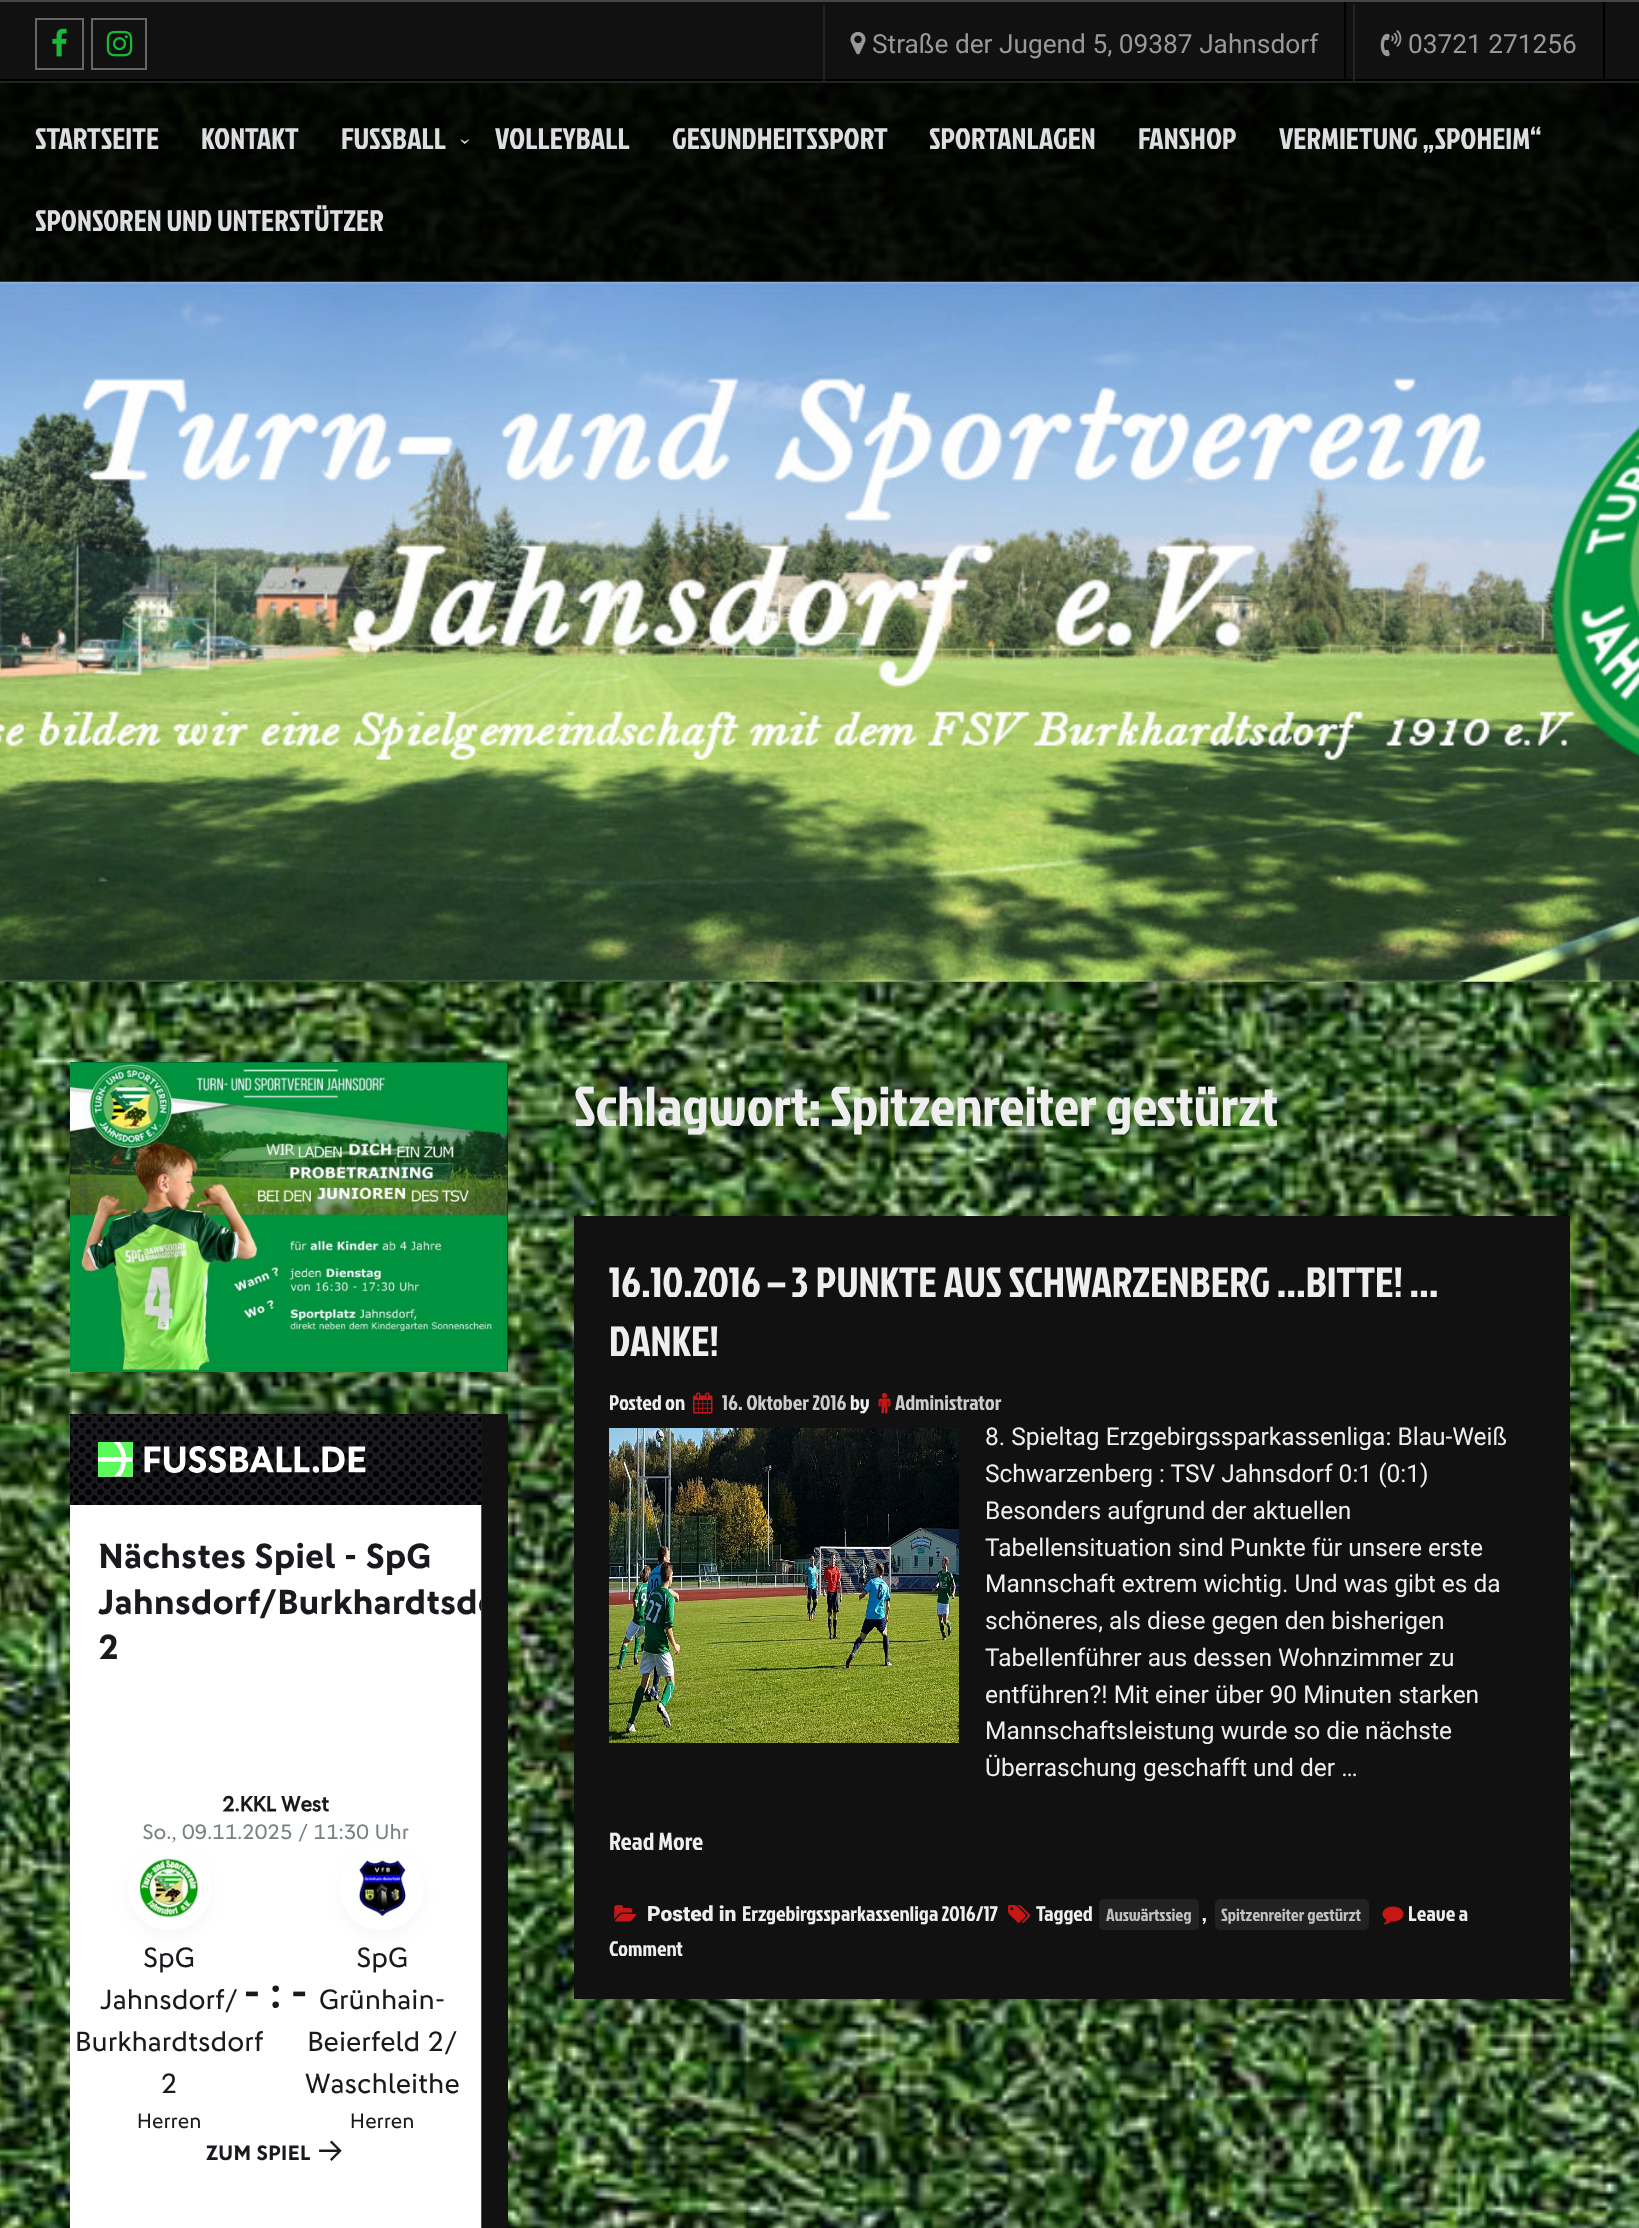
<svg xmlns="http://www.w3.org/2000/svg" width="1639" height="2228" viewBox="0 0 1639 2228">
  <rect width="100%" height="100%" fill="#ffffff"/>
  <image x="0" y="83" width="1639" height="2145" href="img1.png"/>
  <rect x="0" y="2" width="1639" height="77" fill="#111111"/>
  <rect x="0" y="0" width="1639" height="2" fill="#444444"/>
  <rect x="0" y="79" width="1639" height="2" fill="#000000"/>
  <rect x="36" y="19" width="47" height="50" fill="none" stroke="#666666" stroke-width="2"/>
  <image x="52" y="28" width="15" height="29" href="img2.png"/>
  <rect x="92" y="19" width="54" height="50" fill="none" stroke="#666666" stroke-width="2"/>
  <image x="106" y="30" width="27" height="27" href="img3.png"/>
  <rect x="823" y="4" width="2" height="78" fill="#222222"/>
  <rect x="1344" y="2" width="2" height="84" fill="#000000"/>
  <image x="850" y="31" width="16" height="24" href="img4.png"/>
  <text x="872" y="53" font-family="Roboto" font-size="26.25" fill="#999999">Straße der Jugend 5, 09387 Jahnsdorf</text>
  <rect x="1353" y="4" width="2" height="78" fill="#222222"/>
  <rect x="1603" y="2" width="2" height="84" fill="#000000"/>
  <image x="1380" y="30" width="22" height="27" href="img5.png"/>
  <text x="1408" y="53" font-family="Roboto" font-size="26.25" fill="#999999">03721 271256</text>
  <rect x="0" y="83" width="1639" height="199" fill="#000000" fill-opacity="0.9"/>
  <rect x="0" y="81" width="1639" height="2" fill="#222222"/>
  <text x="35" y="149" font-family="Jockey One" font-size="29.75" fill="#dedee2">STARTSEITE</text>
  <text x="201" y="149" font-family="Jockey One" font-size="29.75" fill="#dedee2">KONTAKT</text>
  <text x="341" y="149" font-family="Jockey One" font-size="29.75" fill="#dedee2">FUSSBALL</text>
  <text x="460" y="138" transform="rotate(90 460 138)" font-family="Liberation Serif" font-size="21" fill="#dedee2">›</text>
  <text x="495" y="149" font-family="Jockey One" font-size="29.75" fill="#dedee2">VOLLEYBALL</text>
  <text x="672" y="149" font-family="Jockey One" font-size="29.75" fill="#dedee2">GESUNDHEITSSPORT</text>
  <text x="929" y="149" font-family="Jockey One" font-size="29.75" fill="#dedee2">SPORTANLAGEN</text>
  <text x="1138" y="149" font-family="Jockey One" font-size="29.75" fill="#dedee2">FANSHOP</text>
  <text x="1279" y="149" font-family="Jockey One" font-size="29.75" fill="#dedee2">VERMIETUNG „SPOHEIM“</text>
  <text x="35" y="231" font-family="Jockey One" font-size="29.75" fill="#dedee2">SPONSOREN UND UNTERSTÜTZER</text>
  <image x="0" y="281" width="1639" height="701" href="img6.png"/>
  <rect x="70" y="1062" width="438" height="310" fill="#111111"/>
  <image x="70" y="1062" width="438" height="310" href="img7.png"/>
  <rect x="481" y="1414" width="27" height="814" fill="#111111"/>
  <image x="70" y="1414" width="412" height="814" href="img8.png"/>
  <text x="574" y="1126" font-family="Jockey One" font-size="56" fill="#eeeeee">Schlagwort: Spitzenreiter gestürzt</text>
  <rect x="574" y="1216" width="996" height="783" fill="#111111"/>
  <text x="609" y="1297" font-family="Jockey One" font-size="42" fill="#eeeeee">16.10.2016 – 3 PUNKTE AUS SCHWARZENBERG …BITTE! …</text>
  <text x="609" y="1356" font-family="Jockey One" font-size="42" fill="#eeeeee">DANKE!</text>
  <text x="609" y="1410" font-family="Jockey One" font-size="21" fill="#eeeeee">Posted on</text>
  <image x="693" y="1392" width="20" height="22" href="img9.png"/>
  <text x="722" y="1410" font-family="Jockey One" font-size="21" fill="#cccccc">16. Oktober 2016</text>
  <text x="850" y="1410" font-family="Jockey One" font-size="21" fill="#eeeeee">by</text>
  <image x="878" y="1392" width="13" height="22" href="img10.png"/>
  <text x="895" y="1410" font-family="Jockey One" font-size="21" fill="#cccccc">Administrator</text>
  <image x="609" y="1428" width="350" height="315" href="img11.png"/>
  <text x="985" y="1445" font-family="Roboto" font-size="24.5" fill="#eeeeee">8. Spieltag Erzgebirgssparkassenliga: Blau-Weiß</text>
  <text x="985" y="1482" font-family="Roboto" font-size="24.5" fill="#eeeeee">Schwarzenberg : TSV Jahnsdorf 0:1 (0:1)</text>
  <text x="985" y="1519" font-family="Roboto" font-size="24.5" fill="#eeeeee">Besonders aufgrund der aktuellen</text>
  <text x="985" y="1556" font-family="Roboto" font-size="24.5" fill="#eeeeee">Tabellensituation sind Punkte für unsere erste</text>
  <text x="985" y="1592" font-family="Roboto" font-size="24.5" fill="#eeeeee">Mannschaft extrem wichtig. Und was gibt es da</text>
  <text x="985" y="1629" font-family="Roboto" font-size="24.5" fill="#eeeeee">schöneres, als diese gegen den bisherigen</text>
  <text x="985" y="1666" font-family="Roboto" font-size="24.5" fill="#eeeeee">Tabellenführer aus dessen Wohnzimmer zu</text>
  <text x="985" y="1703" font-family="Roboto" font-size="24.5" fill="#eeeeee">entführen?! Mit einer über 90 Minuten starken</text>
  <text x="985" y="1739" font-family="Roboto" font-size="24.5" fill="#eeeeee">Mannschaftsleistung wurde so die nächste</text>
  <text x="985" y="1776" font-family="Roboto" font-size="24.5" fill="#eeeeee">Überraschung geschafft und der …</text>
  <text x="609" y="1850" font-family="Jockey One" font-size="24.5" fill="#eeeeee">Read More</text>
  <image x="614" y="1905" width="23" height="17" href="img12.png"/>
  <text x="647" y="1921" font-family="Roboto" font-size="21" font-weight="900" fill="#eeeeee">Posted in</text>
  <text x="742" y="1921" font-family="Jockey One" font-size="21" fill="#eeeeee">Erzgebirgssparkassenliga 2016/17</text>
  <image x="1008" y="1905" width="23" height="18" href="img13.png"/>
  <text x="1036" y="1921" font-family="Jockey One" font-size="21" fill="#eeeeee">Tagged</text>
  <rect x="1099" y="1899" width="100" height="31" rx="5" fill="#222222"/>
  <text x="1106" y="1921" font-family="Jockey One" font-size="17.5" fill="#c0c0c0">Auswärtssieg</text>
  <text x="1202" y="1921" font-family="Jockey One" font-size="21" fill="#eeeeee">,</text>
  <rect x="1215" y="1899" width="154" height="31" rx="5" fill="#222222"/>
  <text x="1221" y="1921" font-family="Jockey One" font-size="17.5" fill="#c0c0c0">Spitzenreiter gestürzt</text>
  <image x="1382" y="1906" width="22" height="19" href="img14.png"/>
  <text x="1408" y="1921" font-family="Jockey One" font-size="21" fill="#eeeeee">Leave a</text>
  <text x="609" y="1956" font-family="Jockey One" font-size="21" fill="#eeeeee">Comment</text>
</svg>
